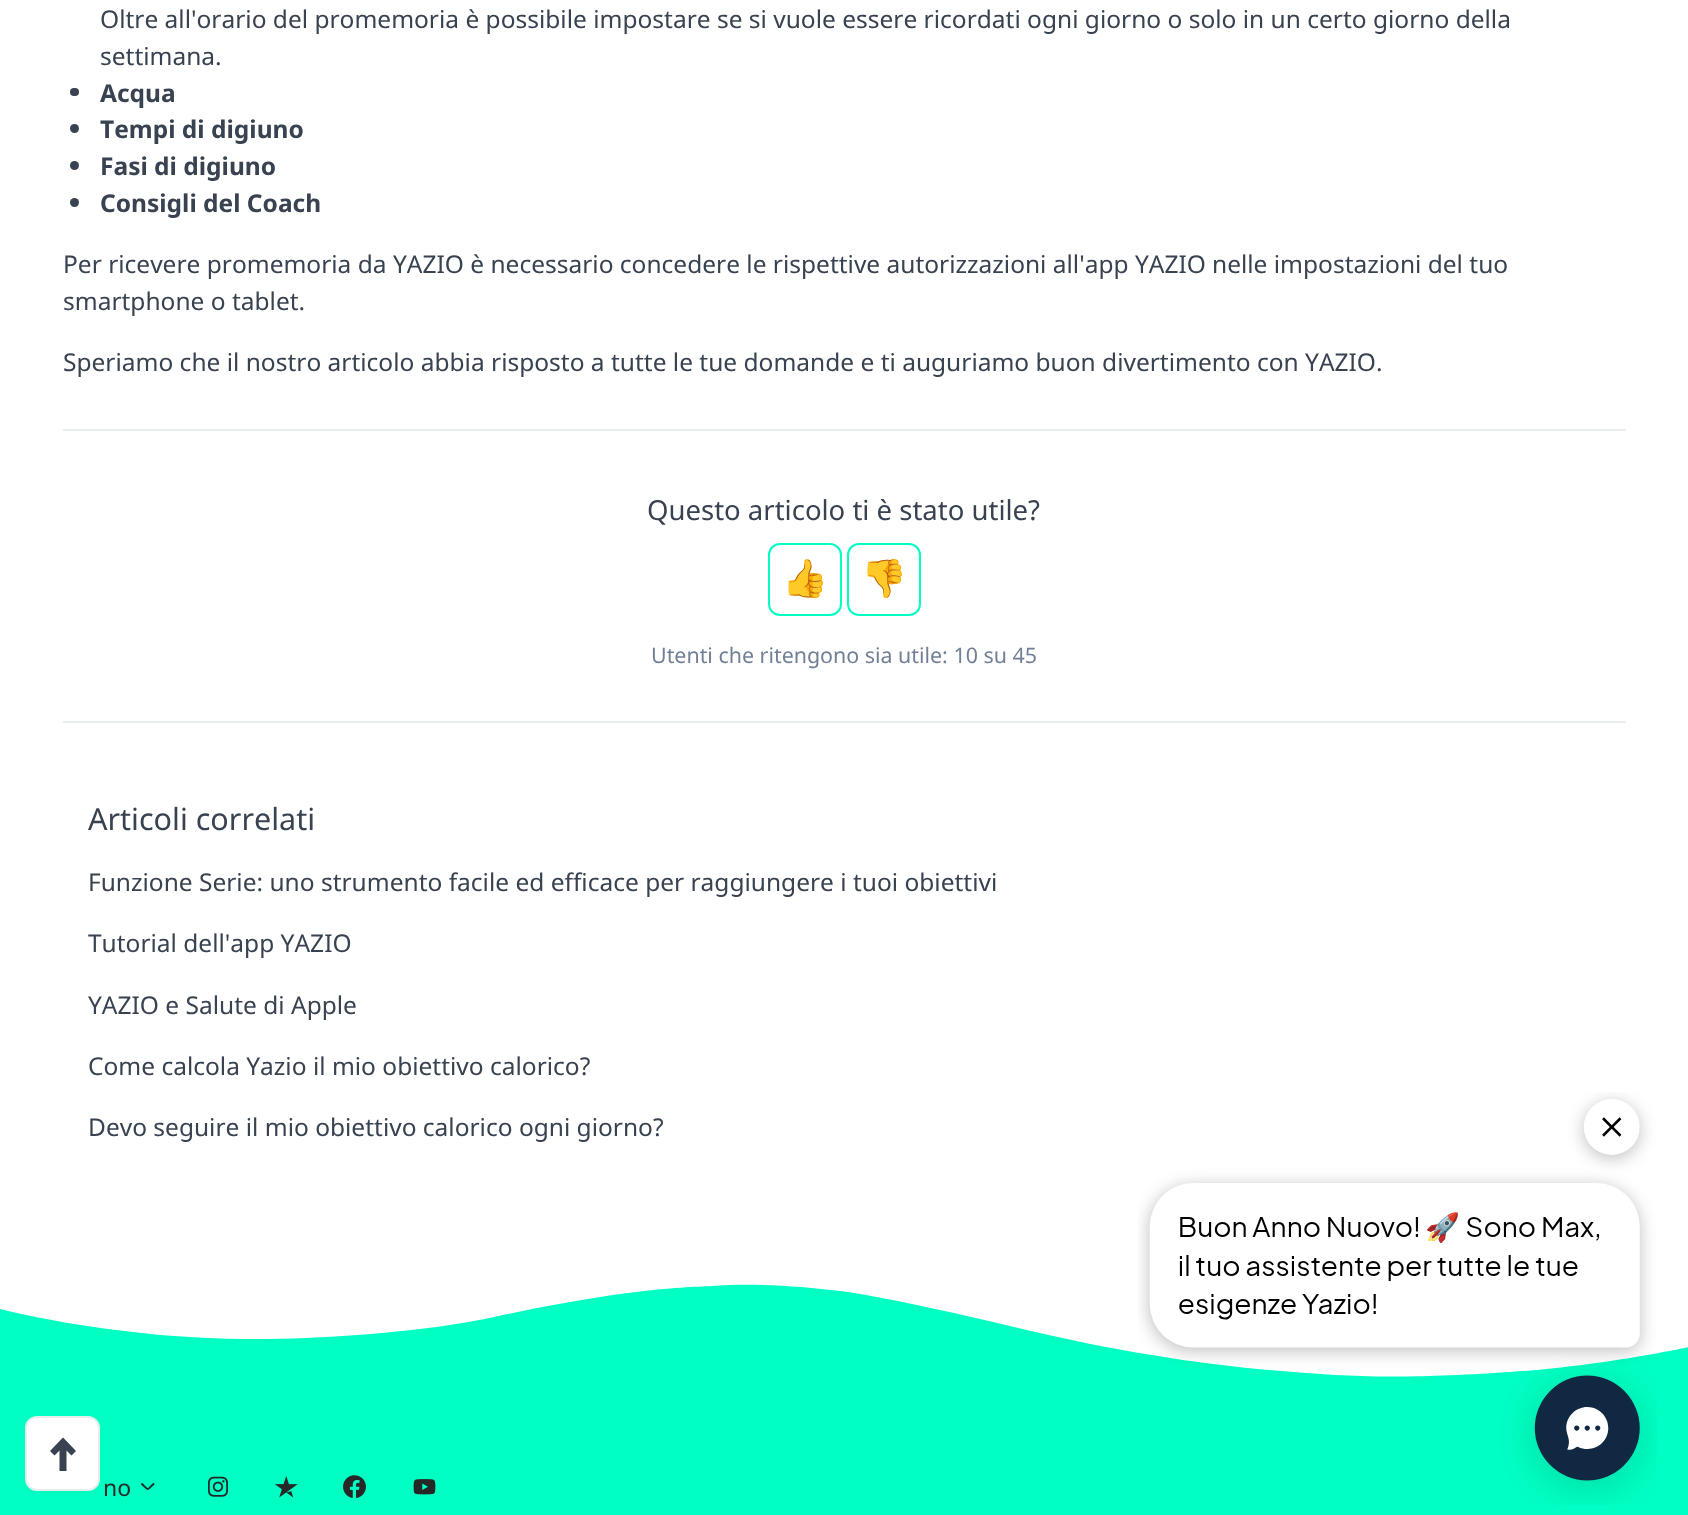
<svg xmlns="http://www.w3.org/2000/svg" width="1688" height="1515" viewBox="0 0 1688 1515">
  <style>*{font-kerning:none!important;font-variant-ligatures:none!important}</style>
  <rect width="100%" height="100%" fill="#ffffff"/>
  <text x="100" y="28" font-family="Noto Sans" font-size="24.5" fill="#384250">Oltre all'orario del promemoria è possibile impostare se si vuole essere ricordati ogni giorno o solo in un certo giorno della</text>
  <text x="100" y="65" font-family="Noto Sans" font-size="24.5" fill="#384250">settimana.</text>
  <rect x="70" y="88" width="9" height="8" rx="4" fill="#384250"/>
  <text x="100" y="102" font-family="Noto Sans" font-size="24.5" font-weight="bold" fill="#384250">Acqua</text>
  <circle cx="74.5" cy="128.5" r="4.5" fill="#384250"/>
  <text x="100" y="138" font-family="Noto Sans" font-size="24.5" font-weight="bold" fill="#384250">Tempi di digiuno</text>
  <circle cx="74.5" cy="165.5" r="4.5" fill="#384250"/>
  <text x="100" y="175" font-family="Noto Sans" font-size="24.5" font-weight="bold" fill="#384250">Fasi di digiuno</text>
  <circle cx="74.5" cy="202.5" r="4.5" fill="#384250"/>
  <text x="100" y="212" font-family="Noto Sans" font-size="24.5" font-weight="bold" fill="#384250">Consigli del Coach</text>
  <text x="63" y="273" font-family="Noto Sans" font-size="24.5" fill="#384250">Per ricevere promemoria da YAZIO è necessario concedere le rispettive autorizzazioni all'app YAZIO</text>
  <text x="1212" y="273" font-family="Noto Sans" font-size="24.5" fill="#384250">nelle impostazioni del tuo</text>
  <text x="63" y="310" font-family="Noto Sans" font-size="24.5" fill="#384250">smartphone o tablet.</text>
  <text x="63" y="371" font-family="Noto Sans" font-size="24.5" fill="#384250">Speriamo che il nostro articolo abbia risposto a tutte le tue domande e ti auguriamo buon divertimento con YAZIO.</text>
  <rect x="63" y="429" width="1563" height="2" fill="#e7eeee"/>
  <rect x="63" y="721" width="1563" height="2" fill="#e7eeee"/>
  <text x="647" y="520" font-family="Noto Sans" font-size="27.5" fill="#384250">Questo articolo ti è stato utile?</text>
  <rect x="769" y="544" width="72" height="71" rx="11" fill="none" stroke="#00ffc3" stroke-width="2"/>
  <text x="782" y="591" font-family="Noto Color Emoji" font-size="37" fill="#00ffc3">👍</text>
  <rect x="848" y="544" width="72" height="71" rx="11" fill="none" stroke="#00ffc3" stroke-width="2"/>
  <text x="861" y="591" font-family="Noto Color Emoji" font-size="37" fill="#00ffc3">👎</text>
  <text x="651" y="663" font-family="Noto Sans" font-size="21.4" fill="#718096">Utenti che ritengono sia utile: 10 su 45</text>
  <text x="88" y="830" font-family="Noto Sans" font-size="30.5" fill="#384250">Articoli correlati</text>
  <text x="88" y="891" font-family="Noto Sans" font-size="24.5" fill="#384250">Funzione Serie: uno strumento facile ed efficace per raggiungere i tuoi obiettivi</text>
  <text x="88" y="952" font-family="Noto Sans" font-size="24.5" fill="#384250">Tutorial dell'app YAZIO</text>
  <text x="88" y="1014" font-family="Noto Sans" font-size="24.5" fill="#384250">YAZIO e Salute di Apple</text>
  <text x="88" y="1075" font-family="Noto Sans" font-size="24.5" fill="#384250">Come calcola Yazio il mio obiettivo calorico?</text>
  <text x="88" y="1136" font-family="Noto Sans" font-size="24.5" fill="#384250">Devo seguire il mio obiettivo calorico ogni giorno?</text>
  <rect x="0" y="1284" width="1688" height="231" fill="#00ffc3"/>
  <path d="M712 1286C751 1283 799 1286 840 1291C880 1296 960 1314 1010 1326C1138 1357 1235 1369 1335 1375C1375 1377 1417 1378 1510 1372C1602 1366 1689 1347 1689 1347V1279H0V1309C0 1309 122 1341 267 1339C334 1338 424 1332 494 1317C530 1309 582 1299 628 1293C674 1287 695 1287 712 1286Z" fill="#ffffff"/>
  <rect x="26" y="1417" width="73" height="73" rx="11" fill="#ffffff" stroke="#e7eeee" stroke-width="2"/>
  <path d="M50 1451L54.5 1455.5L59.5 1450.5V1471H66.5V1450.5L71.5 1455.5L76 1451L63 1437.5Z" fill="#384250"/>
  <text x="103" y="1496" font-family="Noto Sans" font-size="23" fill="#262828">no</text>
  <path d="M142 1484C149 1491 146.5 1490.5 153.5 1484" fill="none" stroke="#262828" stroke-width="1.9" stroke-linecap="round"/>
  <image x="208" y="1476" width="20" height="21" href="img1.png"/>
  <image x="275" y="1476" width="23" height="22" href="img2.png"/>
  <image x="343" y="1475" width="23" height="23" href="img3.png"/>
  <image x="413" y="1479" width="23" height="16" href="img4.png"/>
  <image x="1138" y="1092" width="519" height="413" href="img5.png"/>
</svg>
